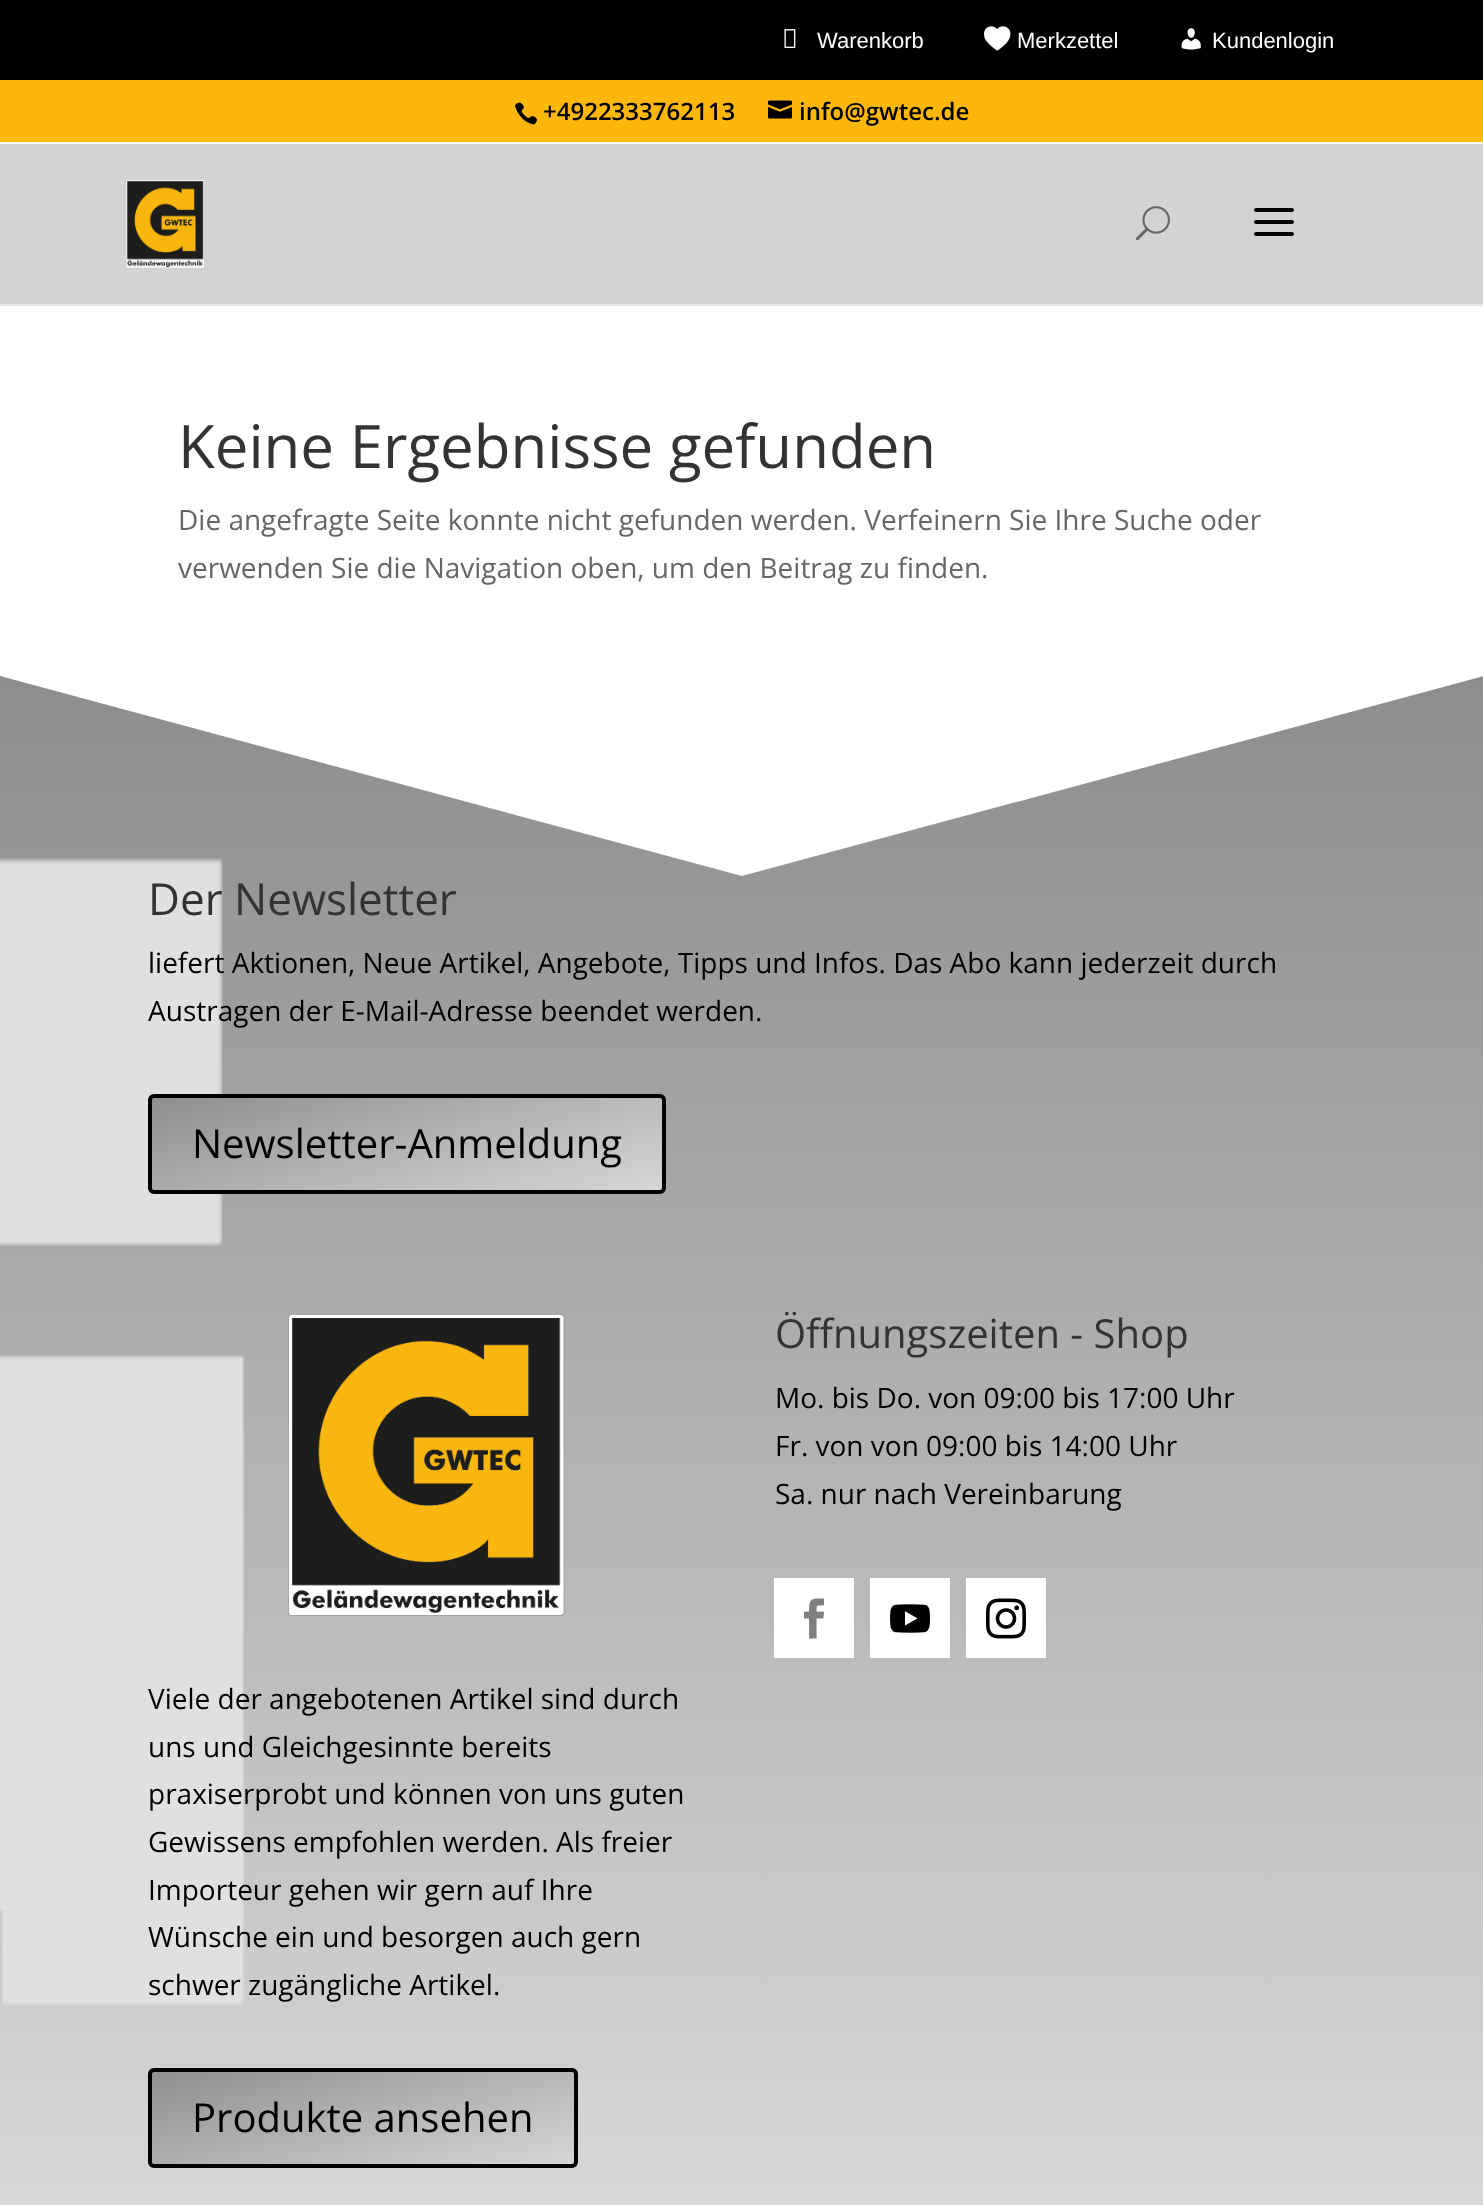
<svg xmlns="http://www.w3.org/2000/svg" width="1483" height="2205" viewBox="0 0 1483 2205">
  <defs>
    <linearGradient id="g1" gradientUnits="userSpaceOnUse" x1="742" y1="676" x2="742" y2="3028"><stop offset="0" stop-color="#8d8d8d"/><stop offset="1" stop-color="#ffffff"/></linearGradient>
    <linearGradient id="g2" gradientUnits="userSpaceOnUse" x1="375" y1="1034" x2="439" y2="1254"><stop offset="0" stop-color="#8f8f8f"/><stop offset="1" stop-color="#d6d6d6"/></linearGradient>
    <linearGradient id="g3" gradientUnits="userSpaceOnUse" x1="335" y1="2020" x2="391" y2="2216"><stop offset="0" stop-color="#8f8f8f"/><stop offset="1" stop-color="#d6d6d6"/></linearGradient>
  </defs>
  <rect width="100%" height="100%" fill="#ffffff"/>
  <rect x="0" y="0" width="1483" height="80" fill="#000000"/>
  <image x="784" y="29" width="12" height="19" href="img1.png"/>
  <text x="817" y="48" font-family="Liberation Sans" font-size="22" fill="#ffffff">Warenkorb</text>
  <image x="984" y="26" width="27" height="25" href="img2.png"/>
  <text x="1017" y="48" font-family="Liberation Sans" font-size="22" fill="#ffffff">Merkzettel</text>
  <image x="1181" y="28" width="20" height="22" href="img3.png"/>
  <text x="1212" y="48" font-family="Liberation Sans" font-size="22" fill="#ffffff">Kundenlogin</text>
  <rect x="0" y="80" width="1483" height="62" fill="#fcb70a"/>
  <image x="515" y="102" width="22" height="23" href="img4.png"/>
  <text x="543" y="120" font-family="Open Sans" font-size="24" font-weight="600" fill="#000000">+4922333762113</text>
  <image x="768" y="100" width="24" height="19" href="img5.png"/>
  <text x="799" y="120" font-family="Open Sans" font-size="24" font-weight="600" fill="#000000">info@gwtec.de</text>
  <rect x="0" y="304" width="1483" height="2" fill="#e6e6e6"/>
  <rect x="0" y="144" width="1483" height="160" fill="#d3d3d3"/>
  <image x="126" y="180" width="78" height="88" href="img6.png"/>
  <image x="1135" y="206" width="35" height="35" href="img7.png"/>
  <image x="1254" y="208" width="40" height="28" href="img8.png"/>
  <text x="178" y="468" font-family="Open Sans" font-size="60" fill="#333333">Keine Ergebnisse gefunden</text>
  <text x="178" y="530" font-family="Open Sans" font-size="28" fill="#666666">Die angefragte Seite konnte nicht gefunden werden. Verfeinern Sie Ihre Suche oder</text>
  <text x="178" y="578" font-family="Open Sans" font-size="28" fill="#666666">verwenden Sie die Navigation oben, um den Beitrag zu finden.</text>
  <rect x="0" y="676" width="1483" height="1529" fill="url(#g1)"/>
  <image x="0" y="858" width="245" height="1148" href="img9.png"/>
  <path d="M742 876L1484 676H0Z" fill="#ffffff"/>
  <text x="148" y="915" font-family="Open Sans" font-size="44" fill="#333333">Der Newsletter</text>
  <text x="148" y="973" font-family="Open Sans" font-size="28" fill="#000000">liefert Aktionen, Neue Artikel, Angebote, Tipps und Infos. Das Abo kann jederzeit durch</text>
  <text x="148" y="1021" font-family="Open Sans" font-size="28" fill="#000000">Austragen der E-Mail-Adresse beendet werden.</text>
  <rect x="152" y="1098" width="510" height="92" fill="url(#g2)"/>
  <rect x="150" y="1096" width="514" height="96" rx="4" fill="none" stroke="#000000" stroke-width="4"/>
  <text x="192" y="1158" font-family="Open Sans" font-size="40" fill="#000000">Newsletter-Anmeldung</text>
  <text x="775" y="1348" font-family="Open Sans" font-size="40" fill="#333333">Öffnungszeiten - Shop</text>
  <text x="775" y="1408" font-family="Open Sans" font-size="28" fill="#000000">Mo. bis Do. von 09:00 bis 17:00 Uhr</text>
  <text x="775" y="1456" font-family="Open Sans" font-size="28" fill="#000000">Fr. von von 09:00 bis 14:00 Uhr</text>
  <text x="775" y="1504" font-family="Open Sans" font-size="28" fill="#000000">Sa. nur nach Vereinbarung</text>
  <rect x="774" y="1578" width="80" height="80" fill="#ffffff"/>
  <image x="804" y="1598" width="20" height="41" href="img10.png"/>
  <rect x="870" y="1578" width="80" height="80" fill="#ffffff"/>
  <image x="890" y="1604" width="40" height="29" href="img11.png"/>
  <rect x="966" y="1578" width="80" height="80" fill="#ffffff"/>
  <image x="986" y="1598" width="40" height="41" href="img12.png"/>
  <image x="288" y="1314" width="277" height="302" href="img13.png"/>
  <text x="148" y="1709" font-family="Open Sans" font-size="28" fill="#000000">Viele der angebotenen Artikel sind durch</text>
  <text x="148" y="1757" font-family="Open Sans" font-size="28" fill="#000000">uns und Gleichgesinnte bereits</text>
  <text x="148" y="1804" font-family="Open Sans" font-size="28" fill="#000000">praxiserprobt und können von uns guten</text>
  <text x="148" y="1852" font-family="Open Sans" font-size="28" fill="#000000">Gewissens empfohlen werden. Als freier</text>
  <text x="148" y="1900" font-family="Open Sans" font-size="28" fill="#000000">Importeur gehen wir gern auf Ihre</text>
  <text x="148" y="1947" font-family="Open Sans" font-size="28" fill="#000000">Wünsche ein und besorgen auch gern</text>
  <text x="148" y="1995" font-family="Open Sans" font-size="28" fill="#000000">schwer zugängliche Artikel.</text>
  <rect x="152" y="2072" width="422" height="92" fill="url(#g3)"/>
  <rect x="150" y="2070" width="426" height="96" rx="4" fill="none" stroke="#000000" stroke-width="4"/>
  <text x="192" y="2132" font-family="Open Sans" font-size="40" fill="#000000">Produkte ansehen</text>
</svg>
